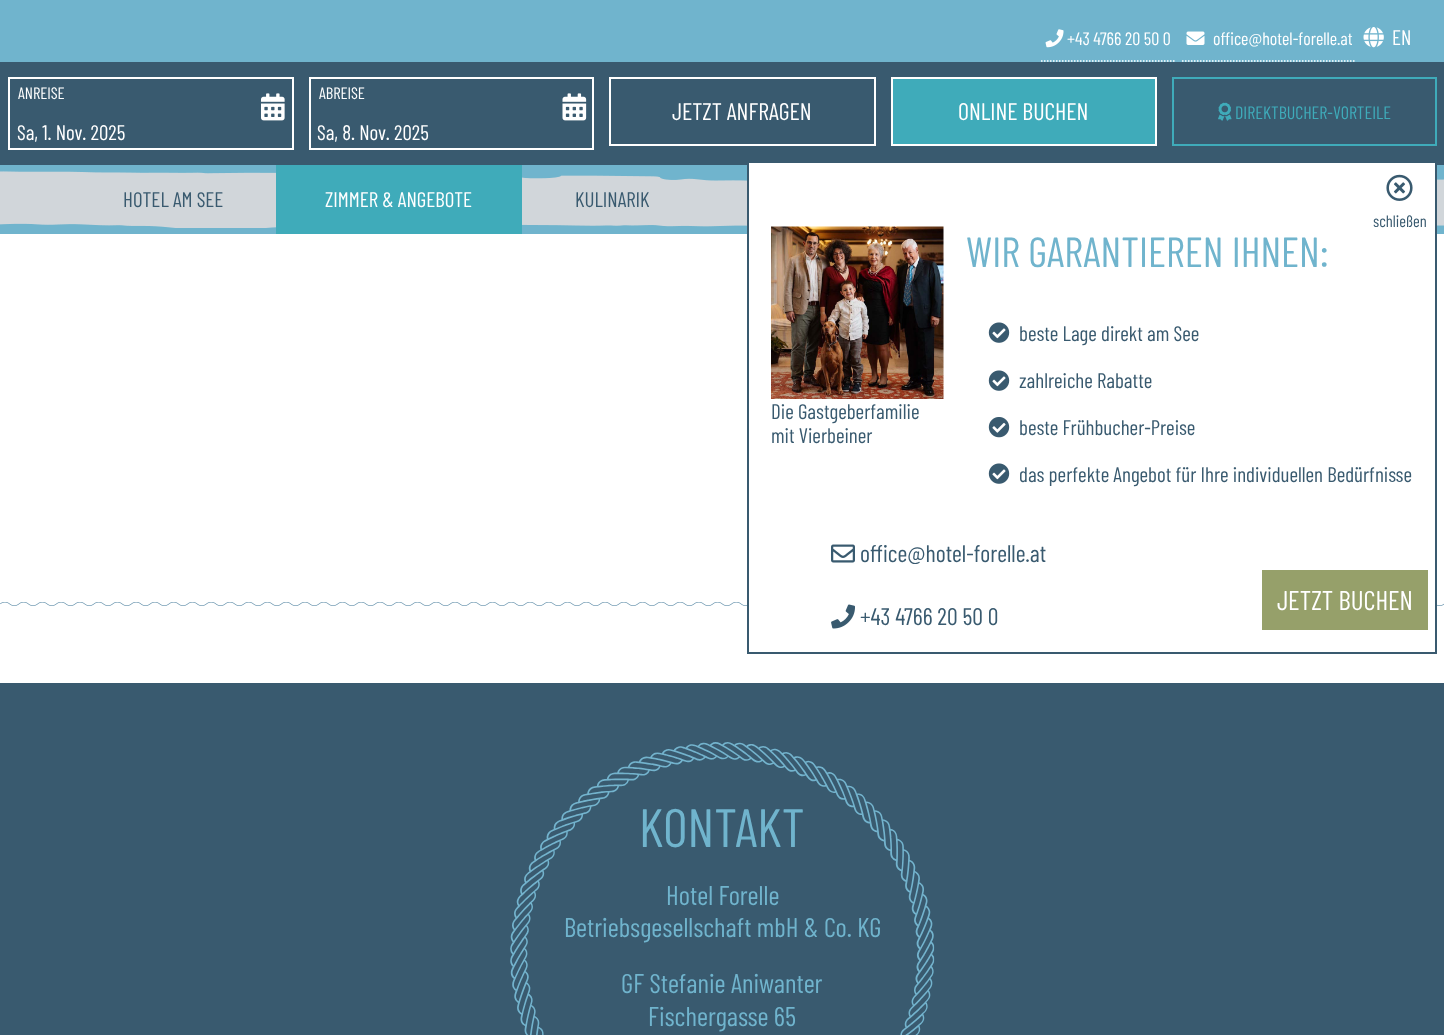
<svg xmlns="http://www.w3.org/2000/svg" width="1444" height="1035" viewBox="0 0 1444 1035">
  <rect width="100%" height="100%" fill="#ffffff"/>
  <rect x="0" y="0" width="1444" height="62" fill="#70b4cd"/>
  <path d="M1041 61H1174.5" fill="none" stroke="#ffffff" stroke-width="1.5" stroke-dasharray="1.5 1.5"/>
  <image x="1045" y="29" width="19" height="19" href="img1.png"/>
  <text x="1067" y="45" font-family="Barlow Condensed" font-size="18" fill="#ffffff">+43 4766 20 50 0</text>
  <path d="M1182 61H1356" fill="none" stroke="#ffffff" stroke-width="1.5" stroke-dasharray="1.5 1.5"/>
  <image x="1186" y="31" width="19" height="14" href="img2.png"/>
  <text x="1213" y="45" font-family="Barlow Condensed" font-size="18" fill="#ffffff">office@hotel-forelle.at</text>
  <image x="1363" y="27" width="21" height="21" href="img3.png"/>
  <text x="1392" y="45" font-family="Barlow Condensed" font-size="21" fill="#ffffff">EN</text>
  <rect x="0" y="62" width="1444" height="103" fill="#395a6f"/>
  <text x="18" y="99" font-family="Barlow Condensed" font-size="16.5" fill="#ffffff">ANREISE</text>
  <image x="261" y="93" width="24" height="28" href="img4.png"/>
  <rect x="9" y="78" width="284" height="71" fill="none" stroke="#ffffff" stroke-width="2"/>
  <text x="17" y="140" font-family="Barlow Condensed" font-size="21" fill="#ffffff">Sa, 1. Nov. 2025</text>
  <text x="319" y="99" font-family="Barlow Condensed" font-size="16.5" fill="#ffffff">ABREISE</text>
  <image x="562" y="93" width="25" height="28" href="img5.png"/>
  <rect x="310" y="78" width="283" height="71" fill="none" stroke="#ffffff" stroke-width="2"/>
  <text x="317" y="140" font-family="Barlow Condensed" font-size="21" fill="#ffffff">Sa, 8. Nov. 2025</text>
  <rect x="610" y="78" width="265" height="67" fill="none" stroke="#ffffff" stroke-width="2"/>
  <text x="672" y="120" font-family="Barlow Condensed" font-size="24" fill="#ffffff">JETZT ANFRAGEN</text>
  <rect x="892" y="78" width="264" height="67" fill="#3fabba" stroke="#ffffff" stroke-width="2"/>
  <text x="958" y="120" font-family="Barlow Condensed" font-size="24" fill="#ffffff">ONLINE BUCHEN</text>
  <rect x="1173" y="78" width="263" height="67" fill="none" stroke="#3fabba" stroke-width="2"/>
  <image x="1218" y="102" width="14" height="19" href="img6.png"/>
  <text x="1235" y="119" font-family="Barlow Condensed" font-size="18" fill="#3fabba">DIREKTBUCHER-VORTEILE</text>
  <rect x="0" y="165" width="1444" height="69" fill="#70b4cd"/>
  <image x="0" y="171" width="1444" height="57" href="img13.png"/>
  <image x="0" y="602" width="1444" height="4" href="img14.png"/>
  <rect x="749" y="163" width="686" height="443" fill="#ffffff"/>
  <rect x="748" y="162" width="688" height="491" fill="none" stroke="#395a6f" stroke-width="2"/>
  <image x="1386" y="174" width="27" height="27" href="img7.png"/>
  <text x="1373" y="227" font-family="Barlow Condensed" font-size="16.5" fill="#395a6f">schließen</text>
  <text x="966" y="267" font-family="Barlow Condensed" font-size="42" fill="#70b4cd">WIR GARANTIEREN IHNEN:</text>
  <image x="771" y="226" width="173" height="173" href="img8.png"/>
  <text x="771" y="419" font-family="Barlow Condensed" font-size="21" fill="#395a6f">Die Gastgeberfamilie</text>
  <text x="771" y="443" font-family="Barlow Condensed" font-size="21" fill="#395a6f">mit Vierbeiner</text>
  <image x="988" y="322" width="22" height="21" href="img9.png"/>
  <text x="1019" y="341" font-family="Barlow Condensed" font-size="21" fill="#395a6f">beste Lage direkt am See</text>
  <image x="988" y="370" width="22" height="21" href="img9.png"/>
  <text x="1019" y="388" font-family="Barlow Condensed" font-size="21" fill="#395a6f">zahlreiche Rabatte</text>
  <image x="988" y="417" width="22" height="21" href="img10.png"/>
  <text x="1019" y="435" font-family="Barlow Condensed" font-size="21" fill="#395a6f">beste Frühbucher-Preise</text>
  <image x="988" y="463" width="22" height="21" href="img9.png"/>
  <text x="1019" y="482" font-family="Barlow Condensed" font-size="21" fill="#395a6f">das perfekte Angebot für Ihre individuellen Bedürfnisse</text>
  <image x="831" y="544" width="24" height="19" href="img11.png"/>
  <text x="860" y="562" font-family="Barlow Condensed" font-size="24" fill="#395a6f">office@hotel-forelle.at</text>
  <image x="831" y="604" width="24" height="25" href="img12.png"/>
  <text x="860" y="625" font-family="Barlow Condensed" font-size="24" fill="#395a6f">+43 4766 20 50 0</text>
  <rect x="1262" y="570" width="166" height="60" fill="#96a06a"/>
  <text x="1277" y="610" font-family="Barlow Condensed" font-size="27" fill="#ffffff">JETZT BUCHEN</text>
  <text x="123" y="207" font-family="Barlow Condensed" font-size="21" fill="#395a6f">HOTEL AM SEE</text>
  <rect x="276" y="165" width="246" height="69" fill="#3fabba"/>
  <text x="325" y="207" font-family="Barlow Condensed" font-size="21" fill="#ffffff">ZIMMER &amp; ANGEBOTE</text>
  <text x="575" y="207" font-family="Barlow Condensed" font-size="21" fill="#395a6f">KULINARIK</text>
  <rect x="0" y="683" width="1444" height="352" fill="#395a6f"/>
  <image x="510" y="742" width="425" height="293" href="img15.png"/>
  <text x="639" y="847" font-family="Barlow Condensed" font-size="54" fill="#70b4cd">KONTAKT</text>
  <text x="666" y="905" font-family="Barlow Condensed" font-size="27" fill="#70b4cd">Hotel Forelle</text>
  <text x="564" y="937" font-family="Barlow Condensed" font-size="27" fill="#70b4cd">Betriebsgesellschaft mbH &amp; Co. KG</text>
  <text x="621" y="993" font-family="Barlow Condensed" font-size="27" fill="#70b4cd">GF Stefanie Aniwanter</text>
  <text x="648" y="1026" font-family="Barlow Condensed" font-size="27" fill="#70b4cd">Fischergasse 65</text>
</svg>
